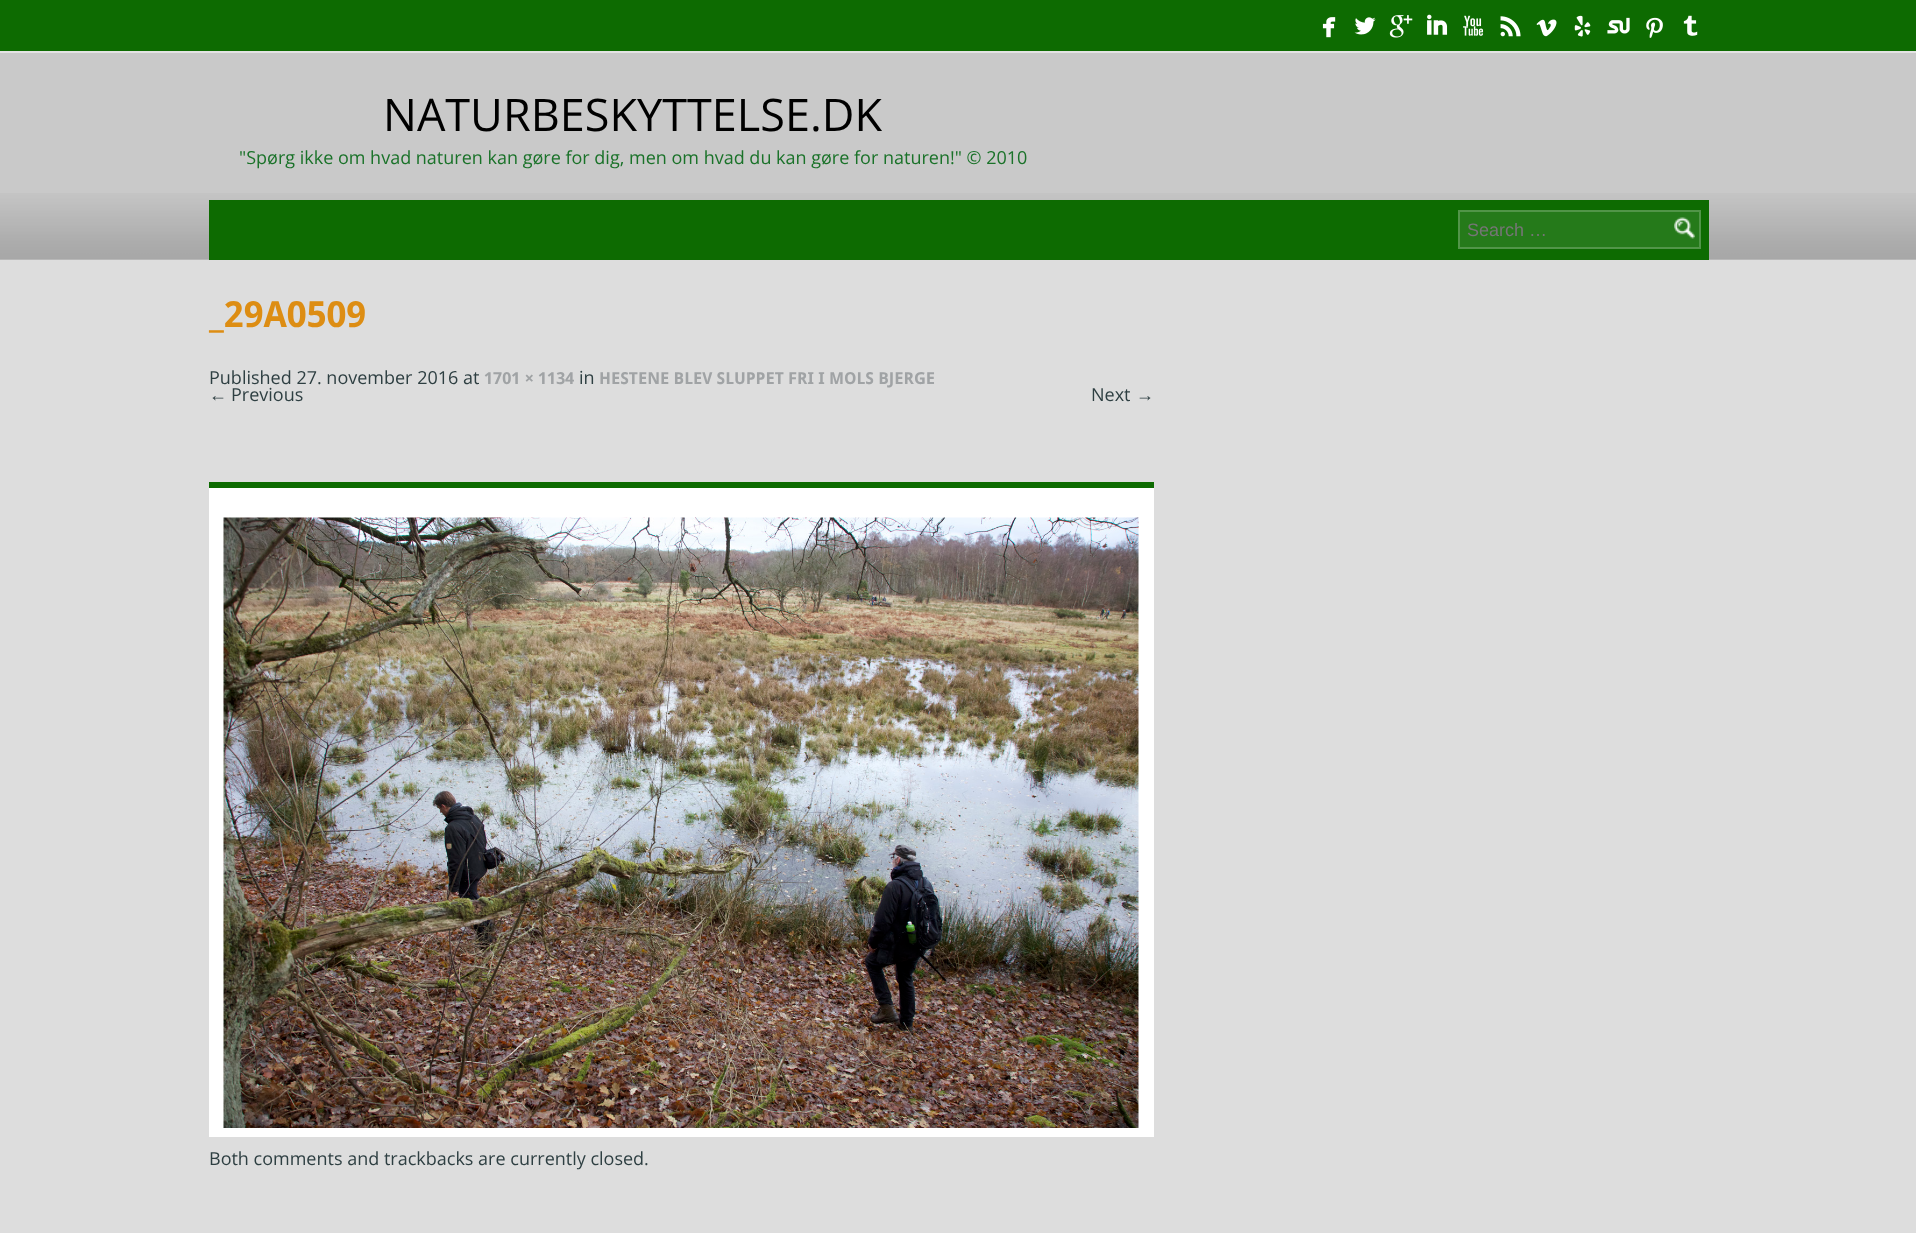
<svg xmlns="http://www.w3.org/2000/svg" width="1916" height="1233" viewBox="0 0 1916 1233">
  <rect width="100%" height="100%" fill="#dddddd"/>
  <rect x="0" y="0" width="1916" height="51" fill="#0d6b01"/>
  <image x="1322" y="17" width="14" height="21" href="img1.png"/>
  <image x="1354" y="17" width="22" height="18" href="img2.png"/>
  <image x="1389" y="15" width="24" height="23" href="img3.png"/>
  <image x="1427" y="14" width="21" height="21" href="img4.png"/>
  <image x="1463" y="15" width="21" height="21" href="img5.png"/>
  <image x="1500" y="16" width="21" height="21" href="img6.png"/>
  <image x="1536" y="19" width="21" height="18" href="img7.png"/>
  <image x="1574" y="15" width="17" height="22" href="img8.png"/>
  <image x="1607" y="17" width="23" height="17" href="img9.png"/>
  <image x="1646" y="17" width="17" height="21" href="img10.png"/>
  <image x="1683" y="15" width="15" height="21" href="img11.png"/>
  <rect x="0" y="53" width="1916" height="207" fill="#c9c9c9"/>
  <image x="0" y="193" width="1916" height="67" href="img12.png"/>
  <rect x="0" y="51" width="1916" height="2" fill="#e4e4e4"/>
  <text x="383" y="131" font-family="Open Sans" font-size="45" fill="#000000">NATURBESKYTTELSE.DK</text>
  <text x="239" y="164" font-family="Open Sans" font-size="18" fill="#1a7229">"Spørg ikke om hvad naturen kan gøre for dig, men om hvad du kan gøre for naturen!" © 2010</text>
  <rect x="209" y="200" width="1500" height="60" fill="#0d6b01"/>
  <rect x="1459" y="211" width="241" height="37" fill="#257a1a" stroke="#519548" stroke-width="2"/>
  <text x="1467" y="236" font-family="Liberation Sans" font-size="18" fill="#757575">Search …</text>
  <image x="1674" y="217" width="21" height="22" href="img13.png"/>
  <text x="209" y="327" font-family="Droid Sans" font-size="36" font-weight="bold" fill="#dd8d13">_29A0509</text>
  <text x="209" y="384" font-family="Open Sans" font-size="18" fill="#2e3f42">Published 27. november 2016 at</text>
  <text x="484" y="384" font-family="Droid Sans" font-size="16.5" font-weight="bold" fill="#a0a3a5">1701 × 1134</text>
  <text x="579" y="384" font-family="Open Sans" font-size="18" fill="#2e3f42">in</text>
  <text x="599" y="384" font-family="Droid Sans" font-size="16.5" font-weight="bold" fill="#a0a3a5">HESTENE BLEV SLUPPET FRI I MOLS BJERGE</text>
  <text x="209" y="401" font-family="Liberation Sans" font-size="18" fill="#2e3f42">←</text>
  <text x="231" y="401" font-family="Open Sans" font-size="18" fill="#2e3f42">Previous</text>
  <text x="1091" y="401" font-family="Open Sans" font-size="18" fill="#2e3f42">Next</text>
  <text x="1136" y="401" font-family="Liberation Sans" font-size="18" fill="#2e3f42">→</text>
  <rect x="209" y="488" width="945" height="649" fill="#ffffff"/>
  <rect x="209" y="482" width="945" height="6" fill="#0d6b01"/>
  <image x="223" y="517" width="916" height="611" href="img14.png"/>
  <text x="209" y="1165" font-family="Open Sans" font-size="18" fill="#2e3f42">Both comments and trackbacks are currently closed.</text>
</svg>
